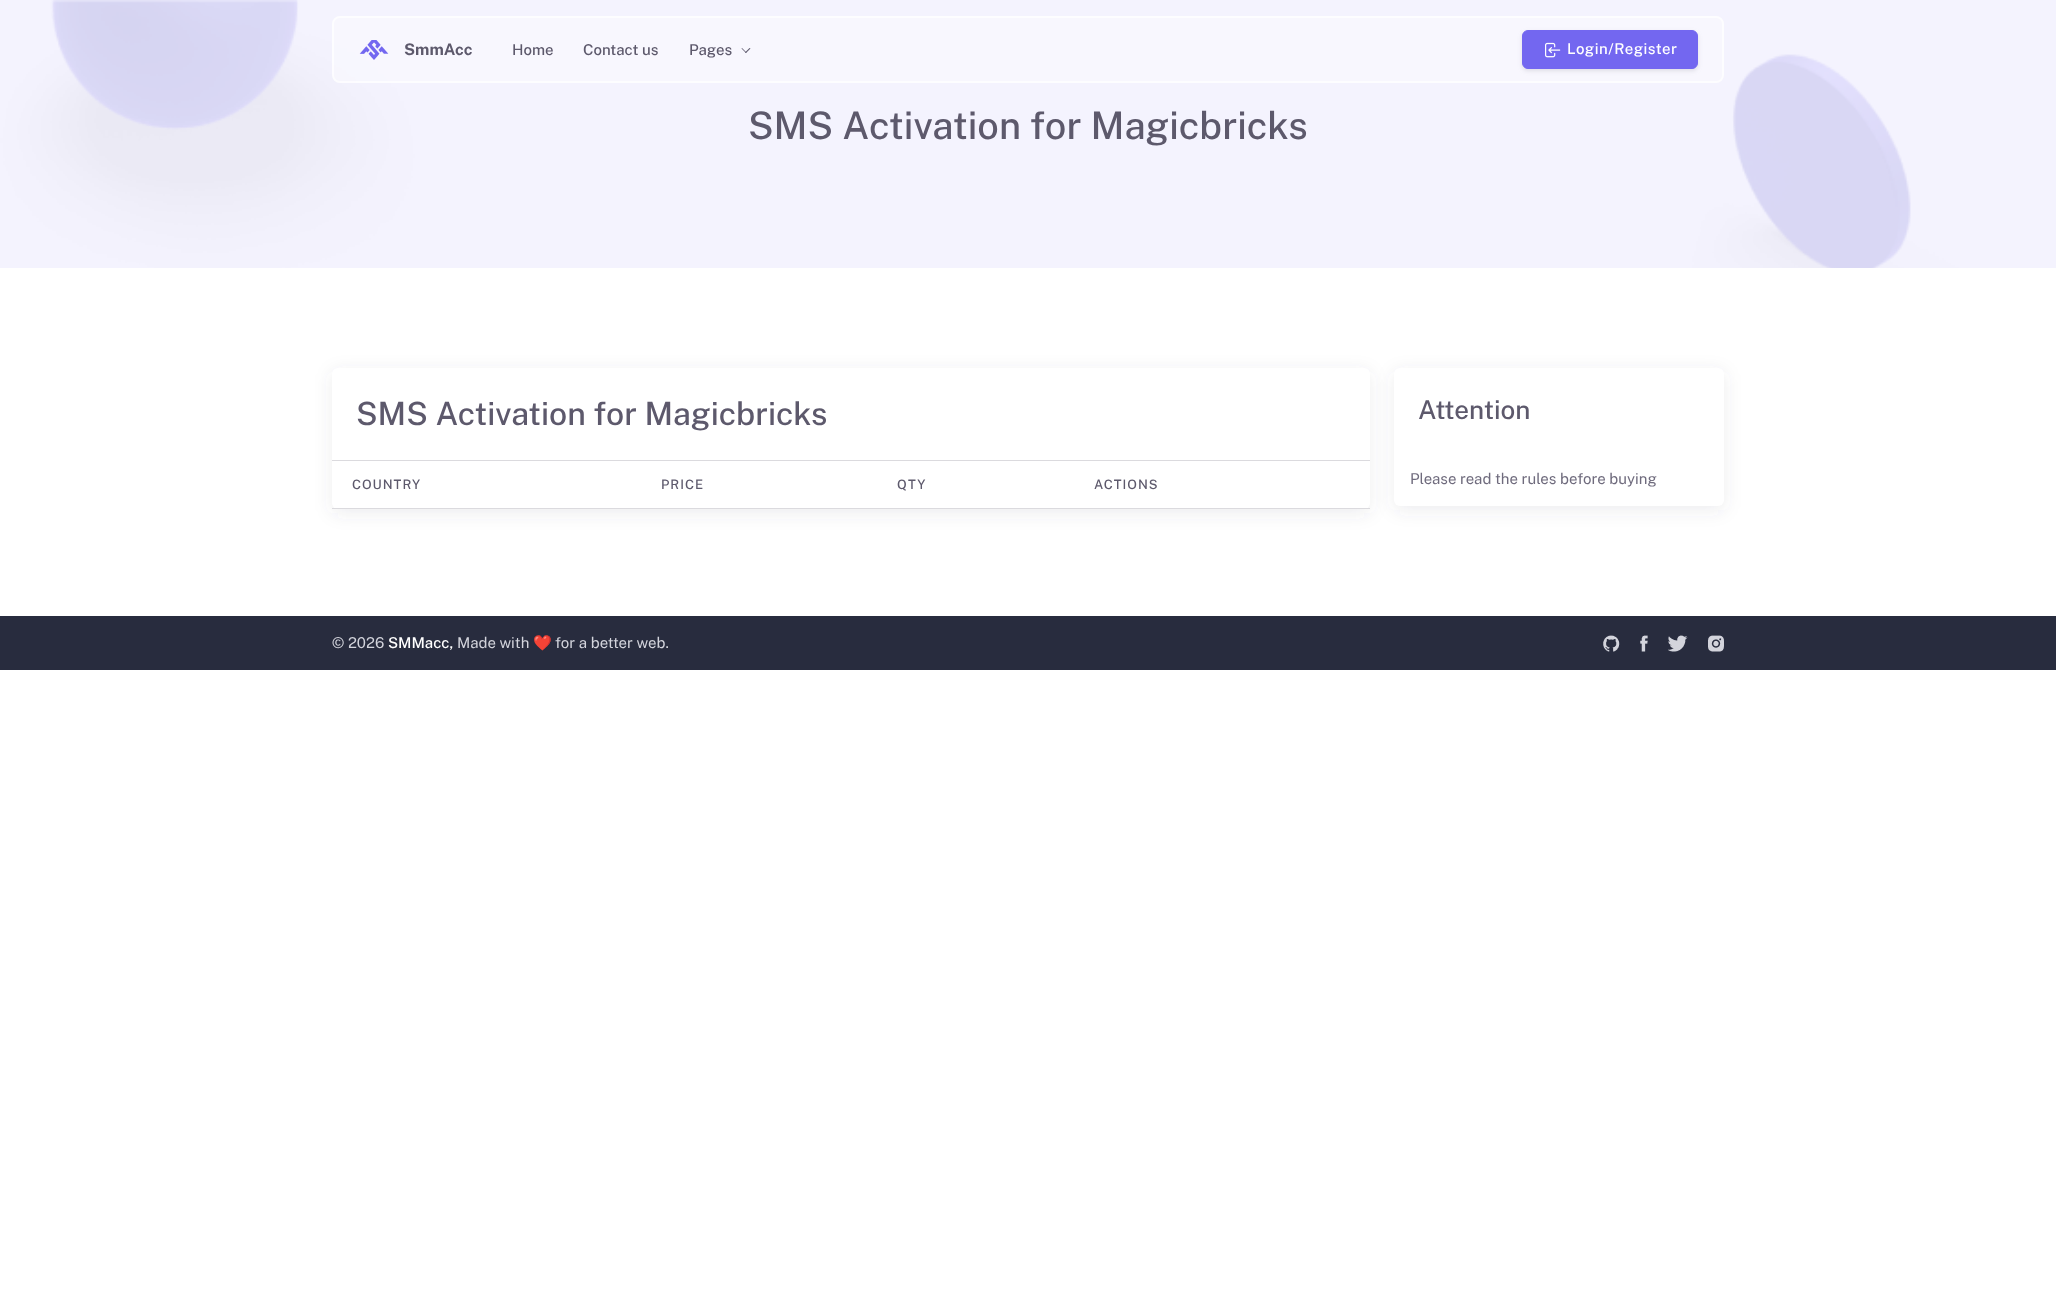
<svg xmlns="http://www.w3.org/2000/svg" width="2056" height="1289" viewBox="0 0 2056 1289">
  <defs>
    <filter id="blur1" x="-50%" y="-200%" width="200%" height="500%"><feGaussianBlur stdDeviation="2"/></filter>
    <filter id="blur2" x="-50%" y="-200%" width="200%" height="500%"><feGaussianBlur stdDeviation="9"/></filter>
  </defs>
  <rect width="100%" height="100%" fill="#ffffff"/>
  <image x="0" y="0" width="2056" height="268" href="img3.png"/>
  <rect x="332" y="16" width="1392" height="67" rx="8" fill="#ffffff" fill-opacity="0.38"/>
  <rect x="333" y="17" width="1390" height="65" rx="7" fill="none" stroke="#ffffff" stroke-opacity="0.68" stroke-width="2"/>
  <image x="359" y="40" width="30" height="20" href="img1.png"/>
  <text x="404" y="55" font-family="Public Sans" font-size="16" font-weight="bold" fill="#5d596c">SmmAcc</text>
  <text x="512" y="55" font-family="Public Sans" font-size="15" font-weight="500" fill="#5d596c">Home</text>
  <text x="583" y="55" font-family="Public Sans" font-size="15" font-weight="500" fill="#5d596c">Contact us</text>
  <text x="689" y="55" font-family="Public Sans" font-size="15" font-weight="500" fill="#5d596c">Pages</text>
  <path d="M749.5 48L750.5 48.5L746 53L745 52.5Z" fill="#5d596c"/>
  <path d="M742 48L746.5 52.5L746 53L741.5 48.5Z" fill="#5d596c"/>
  <rect x="1522" y="32" width="176" height="39" rx="6" fill="#a5a3ae" fill-opacity="0.3" filter="url(#blur1)"/>
  <rect x="1522.5" y="30.5" width="175" height="38" rx="5.5" fill="#7367f0" stroke="#7367f0"/>
  <image x="1545" y="42" width="16" height="16" href="img2.png"/>
  <text x="1567" y="54" font-family="Public Sans" font-size="15" font-weight="500" letter-spacing="0.5" fill="#ffffff">Login/Register</text>
  <text x="748" y="139" font-family="Public Sans" font-size="38" font-weight="500" fill="#5d596c">SMS Activation for Magicbricks</text>
  <rect x="1394" y="372" width="330" height="138" rx="6" fill="#4b465c" fill-opacity="0.1" filter="url(#blur2)"/>
  <rect x="1394" y="368" width="330" height="138" rx="6" fill="#ffffff"/>
  <rect x="332" y="372" width="1038" height="141" rx="6" fill="#4b465c" fill-opacity="0.1" filter="url(#blur2)"/>
  <rect x="332" y="368" width="1038" height="141" rx="6" fill="#ffffff"/>
  <text x="356" y="425" font-family="Public Sans" font-size="32" font-weight="500" fill="#5d596c">SMS Activation for Magicbricks</text>
  <rect x="332" y="460" width="1038" height="1" fill="#dbdade"/>
  <text x="352" y="489" font-family="Public Sans" font-size="13" font-weight="500" letter-spacing="1" fill="#5d596c">COUNTRY</text>
  <text x="661" y="489" font-family="Public Sans" font-size="13" font-weight="500" letter-spacing="1" fill="#5d596c">PRICE</text>
  <text x="897" y="489" font-family="Public Sans" font-size="13" font-weight="500" letter-spacing="1" fill="#5d596c">QTY</text>
  <rect x="332" y="508" width="1038" height="1" fill="#dbdade"/>
  <text x="1094" y="489" font-family="Public Sans" font-size="13" font-weight="500" letter-spacing="1" fill="#5d596c">ACTIONS</text>
  <text x="1418" y="419" font-family="Public Sans" font-size="26" font-weight="500" fill="#5d596c">Attention</text>
  <text x="1410" y="484" font-family="Public Sans" font-size="15" fill="#6f6b7d">Please read the rules before buying</text>
  <rect x="0" y="616" width="2056" height="54" fill="#282c3e"/>
  <text x="332" y="648" font-family="Public Sans" font-size="15" fill="#d3d4dc">© 2026</text>
  <text x="388" y="648" font-family="Public Sans" font-size="15" font-weight="500" fill="#ffffff">SMMacc,</text>
  <text x="457" y="648" font-family="Public Sans" font-size="15" fill="#d3d4dc">Made with</text>
  <text x="533" y="648" font-family="Noto Color Emoji" font-size="15" fill="#d3d4dc">❤️</text>
  <text x="555" y="648" font-family="Public Sans" font-size="15" fill="#d3d4dc">for a better web.</text>
  <image x="1603" y="635" width="17" height="17" href="img4.png"/>
  <image x="1640" y="635" width="8" height="17" href="img5.png"/>
  <image x="1668" y="635" width="20" height="17" href="img6.png"/>
  <image x="1708" y="635" width="16" height="17" href="img7.png"/>
</svg>
